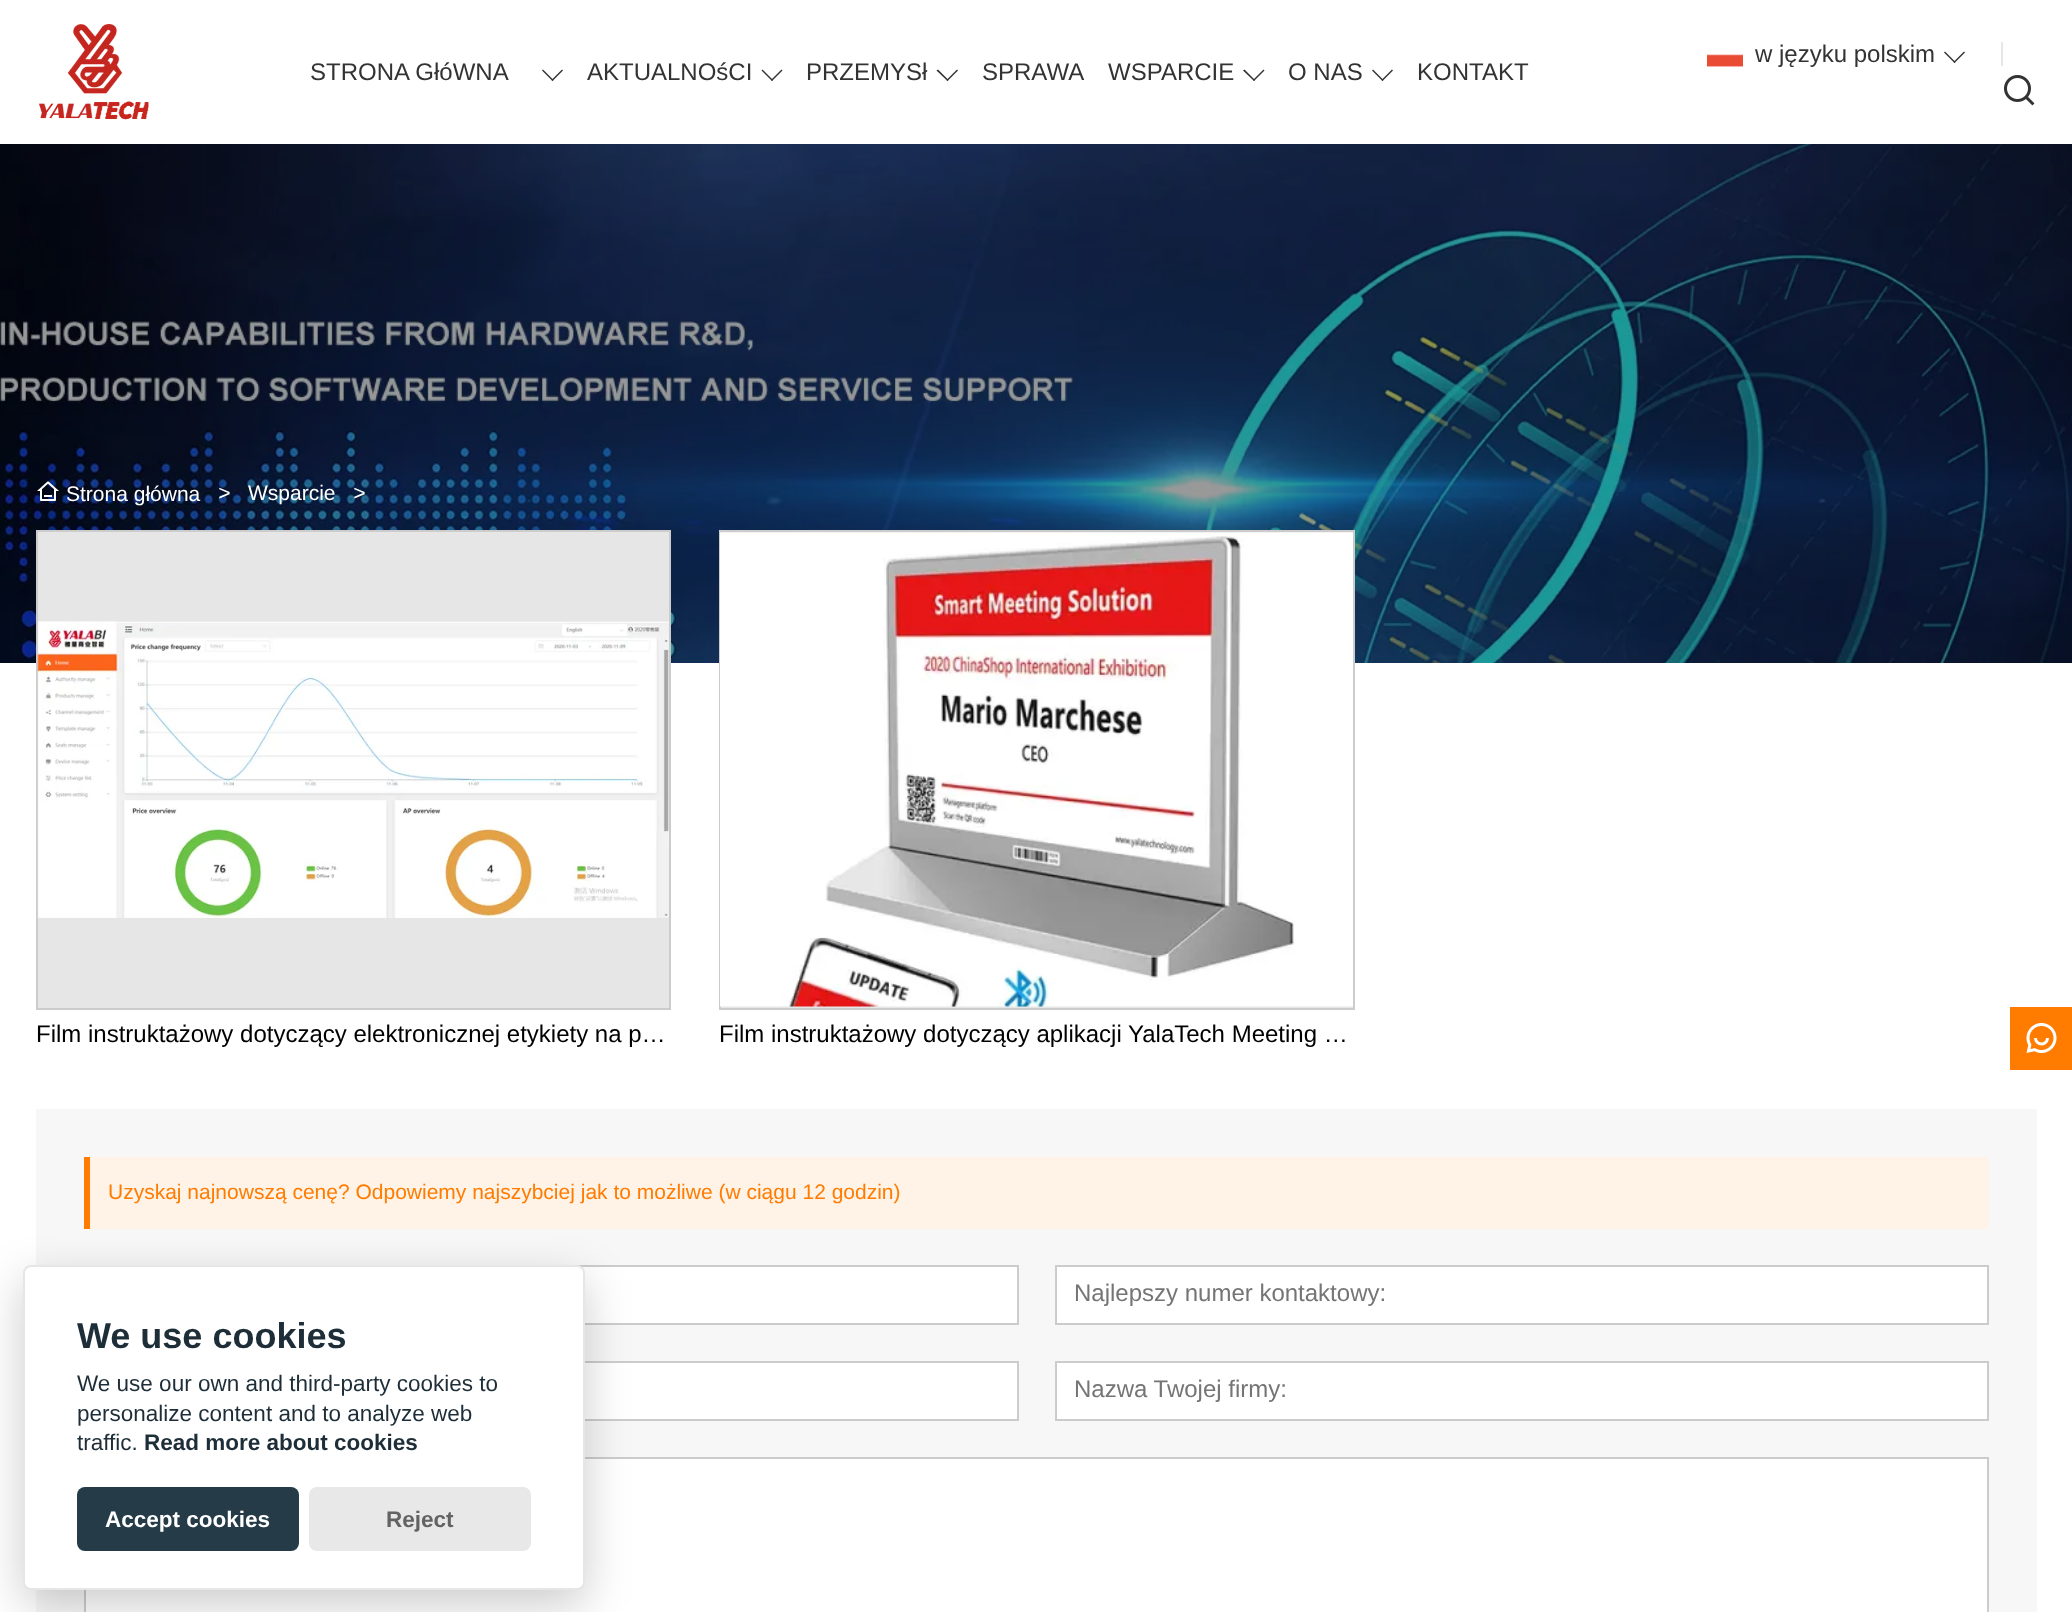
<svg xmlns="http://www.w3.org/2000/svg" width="2072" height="1612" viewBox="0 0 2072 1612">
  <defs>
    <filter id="blur1" x="-50%" y="-200%" width="200%" height="500%"><feGaussianBlur stdDeviation="22.5"/></filter>
  </defs>
  <rect width="100%" height="100%" fill="#ffffff"/>
  <image x="39" y="24" width="110" height="96" href="img1.png"/>
  <image x="1707" y="54" width="36" height="13" href="img2.png"/>
  <text x="1755" y="62" font-family="Liberation Sans" font-size="24" fill="#333333">w języku polskim</text>
  <path d="M1965 52.5L1954.5 63L1953.5 62L1964 51.5Z" fill="#333333"/>
  <path d="M1955.5 62L1954.5 63L1944 52.5L1945 51.5Z" fill="#333333"/>
  <rect x="2001" y="42" width="2" height="24" fill="#e6e6e6"/>
  <image x="2004" y="75" width="31" height="31" href="img3.png"/>
  <text x="310" y="80" font-family="Liberation Sans" font-size="24" fill="#333333">STRONA GłóWNA</text>
  <path d="M563 70.5L552.5 81L551.5 80L562 69.5Z" fill="#333333"/>
  <path d="M553.5 80L552.5 81L542 70.5L543 69.5Z" fill="#333333"/>
  <text x="587" y="80" font-family="Liberation Sans" font-size="24" fill="#333333">AKTUALNOśCI</text>
  <path d="M782.5 70.5L772 81L771 80L781.5 69.5Z" fill="#333333"/>
  <path d="M773 80L772 81L761.5 70.5L762.5 69.5Z" fill="#333333"/>
  <text x="806" y="80" font-family="Liberation Sans" font-size="24" fill="#333333">PRZEMYSł</text>
  <path d="M958 70.5L947.5 81L946.5 80L957 69.5Z" fill="#333333"/>
  <path d="M948.5 80L947.5 81L936.5 70.5L938 69.5Z" fill="#333333"/>
  <text x="982" y="80" font-family="Liberation Sans" font-size="24" fill="#333333">SPRAWA</text>
  <text x="1108" y="80" font-family="Liberation Sans" font-size="24" fill="#333333">WSPARCIE</text>
  <path d="M1264.5 70.5L1254 81L1253 80L1263.5 69.5Z" fill="#333333"/>
  <path d="M1255 80L1254 81L1243 70.5L1244.5 69.5Z" fill="#333333"/>
  <text x="1288" y="80" font-family="Liberation Sans" font-size="24" fill="#333333">O NAS</text>
  <path d="M1393 70.5L1382.5 81L1381.5 80L1392 69.5Z" fill="#333333"/>
  <path d="M1383.5 80L1382.5 81L1372 70.5L1373 69.5Z" fill="#333333"/>
  <text x="1417" y="80" font-family="Liberation Sans" font-size="24" fill="#333333">KONTAKT</text>
  <image x="0" y="144" width="2072" height="519" href="img4.png"/>
  <image x="37" y="481" width="22" height="20" href="img5.png"/>
  <text x="66" y="501" font-family="Liberation Sans" font-size="21" fill="#ffffff">Strona główna</text>
  <text x="218" y="500" font-family="Liberation Sans" font-size="21" font-style="italic" fill="#ffffff">&gt;</text>
  <text x="248" y="500" font-family="Liberation Sans" font-size="21" fill="#ffffff">Wsparcie</text>
  <text x="353" y="500" font-family="Liberation Sans" font-size="21" font-style="italic" fill="#ffffff">&gt;</text>
  <rect x="37" y="531" width="633" height="478" fill="#e6e6e6" stroke="#cccccc" stroke-width="2"/>
  <image x="37" y="621" width="632" height="297" href="img6.png"/>
  <text x="36" y="1042" font-family="Liberation Sans" font-size="24" fill="#000000">Film instruktażowy dotyczący elektronicznej etykiety na p…</text>
  <rect x="720" y="531" width="634" height="478" fill="#e6e6e6" stroke="#cccccc" stroke-width="2"/>
  <image x="720" y="532" width="633" height="475" href="img7.png"/>
  <text x="719" y="1042" font-family="Liberation Sans" font-size="24" fill="#000000">Film instruktażowy dotyczący aplikacji YalaTech Meeting …</text>
  <rect x="36" y="1109" width="2001" height="503" fill="#f7f7f7"/>
  <rect x="90" y="1157" width="1899" height="72" fill="#fff2e6"/>
  <rect x="84" y="1157" width="6" height="72" fill="#ff7c00"/>
  <text x="108" y="1199" font-family="Liberation Sans" font-size="21" fill="#ff7c00">Uzyskaj najnowszą cenę? Odpowiemy najszybciej jak to możliwe (w ciągu 12 godzin)</text>
  <rect x="582" y="1267" width="435" height="56" fill="#ffffff"/>
  <rect x="85" y="1266" width="933" height="58" fill="none" stroke="#cccccc" stroke-width="2"/>
  <rect x="1056" y="1266" width="932" height="58" fill="#ffffff" stroke="#cccccc" stroke-width="2"/>
  <text x="1074" y="1301" font-family="Liberation Sans" font-size="24" fill="#757575">Najlepszy numer kontaktowy:</text>
  <rect x="585" y="1363" width="432" height="56" fill="#ffffff"/>
  <rect x="85" y="1362" width="933" height="58" fill="none" stroke="#cccccc" stroke-width="2"/>
  <rect x="1056" y="1362" width="932" height="58" fill="#ffffff" stroke="#cccccc" stroke-width="2"/>
  <text x="1074" y="1397" font-family="Liberation Sans" font-size="24" fill="#757575">Nazwa Twojej firmy:</text>
  <rect x="85" y="1458" width="1903" height="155" fill="#ffffff" stroke="#cccccc" stroke-width="2"/>
  <rect x="2010" y="1007" width="62" height="63" fill="#ff7c00"/>
  <image x="2026" y="1023" width="31" height="30" href="img8.png"/>
  <rect x="23" y="1280" width="562" height="325" rx="8" fill="#020203" fill-opacity="0.2" filter="url(#blur1)"/>
  <rect x="24" y="1266" width="560" height="323" rx="7" fill="#ffffff" stroke="#e6e6e6" stroke-width="2"/>
  <text x="77" y="1348" font-family="Liberation Sans" font-size="36" font-weight="bold" fill="#1d2e38">We use cookies</text>
  <text x="77" y="1391" font-family="Liberation Sans" font-size="22.5" fill="#1d2e38">We use our own and third-party cookies to</text>
  <text x="77" y="1421" font-family="Liberation Sans" font-size="22.5" fill="#1d2e38">personalize content and to analyze web</text>
  <text x="77" y="1450" font-family="Liberation Sans" font-size="22.5" fill="#1d2e38">traffic.</text>
  <text x="144" y="1450" font-family="Liberation Sans" font-size="22.5" font-weight="bold" fill="#1d2e38">Read more about cookies</text>
  <rect x="77" y="1487" width="222" height="64" rx="8" fill="#253b48"/>
  <text x="105" y="1527" font-family="Liberation Sans" font-size="22.5" font-weight="bold" fill="#ffffff">Accept cookies</text>
  <rect x="309" y="1487" width="222" height="64" rx="8" fill="#e8e8e8"/>
  <text x="386" y="1527" font-family="Liberation Sans" font-size="22.5" font-weight="bold" fill="#636363">Reject</text>
</svg>
